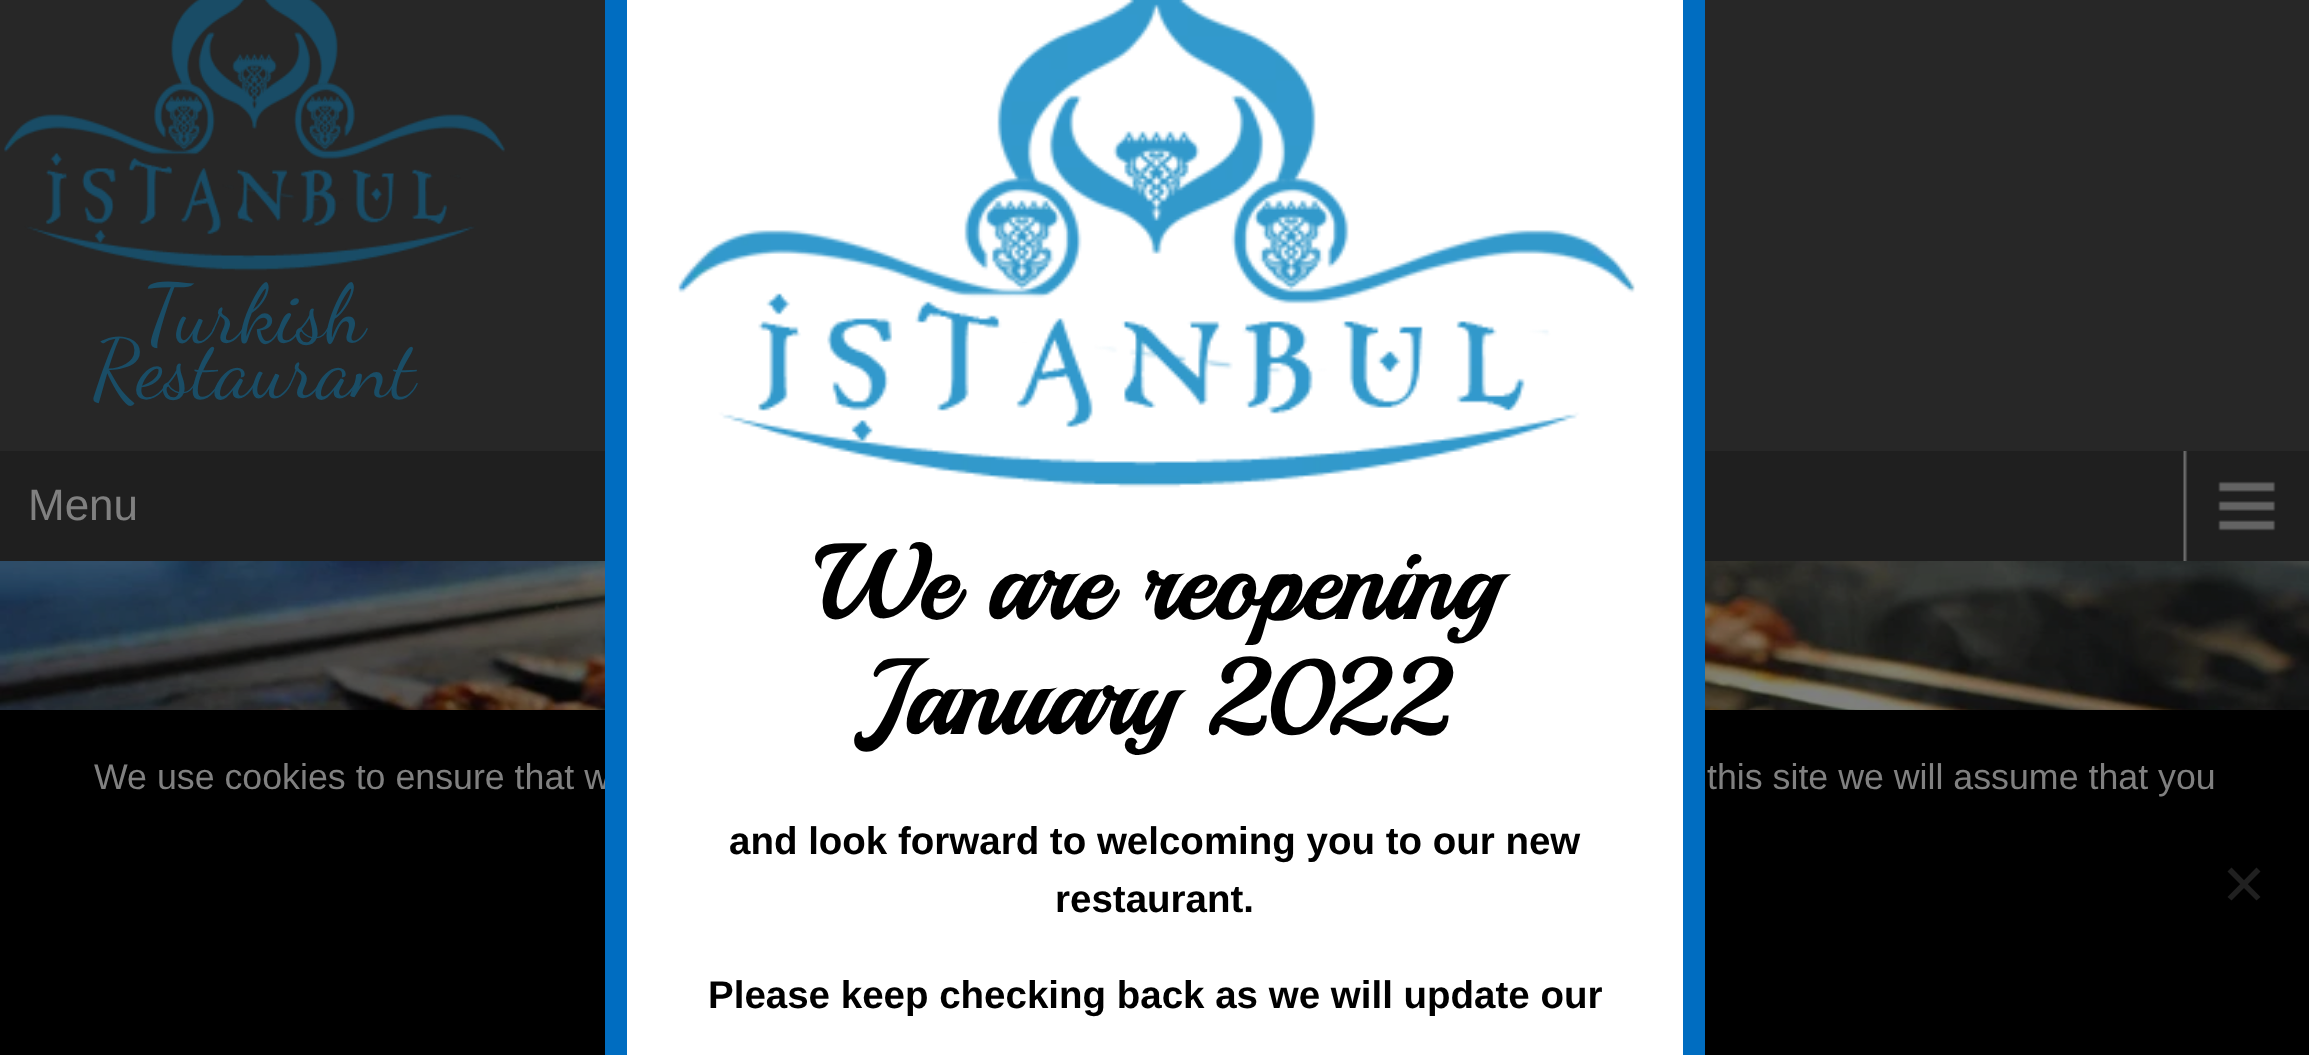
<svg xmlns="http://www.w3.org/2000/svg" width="2309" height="1055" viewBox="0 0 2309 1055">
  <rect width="100%" height="100%" fill="#ffffff"/>
  <rect x="0" y="0" width="2309" height="451" fill="#272727"/>
  <image x="4" y="0" width="501" height="271" href="img1.png"/>
  <text x="142" y="341" font-family="Dancing Script" font-size="82.5" fill="#1a4d66">Turkish</text>
  <text x="92" y="396" font-family="Dancing Script" font-size="82.5" fill="#1a4d66">Restaurant</text>
  <rect x="0" y="451" width="2309" height="110" fill="#1f1f1f"/>
  <image x="2183" y="451" width="93" height="110" href="img2.png"/>
  <text x="28" y="520" font-family="Liberation Sans" font-size="44" fill="#808080">Menu</text>
  <image x="0" y="561" width="2309" height="149" href="img4.png"/>
  <rect x="0" y="710" width="2309" height="345" fill="#000000"/>
  <text x="94" y="789" font-family="Liberation Sans" font-size="35.75" fill="#808080">We use cookies to ensure that w</text>
  <rect x="616" y="-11" width="1078" height="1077" fill="#ffffff" stroke="#006dc1" stroke-width="22"/>
  <image x="678" y="0" width="957" height="488" href="img3.png"/>
  <text x="814" y="619" font-family="Playball" font-size="104.5" font-weight="bold" fill="#000000">We are reopening</text>
  <text x="863" y="734" font-family="Playball" font-size="104.5" font-weight="bold" fill="#000000">January 2022</text>
  <text x="729" y="854" font-family="Liberation Sans" font-size="38.5" font-weight="bold" fill="#000000">and look forward to welcoming you to our new</text>
  <text x="1055" y="912" font-family="Liberation Sans" font-size="38.5" font-weight="bold" fill="#000000">restaurant.</text>
  <text x="708" y="1008" font-family="Liberation Sans" font-size="38.5" font-weight="bold" fill="#000000">Please keep checking back as we will update our</text>
  <text x="1707" y="789" font-family="Liberation Sans" font-size="35.75" fill="#808080">this site we will assume that you</text>
  <path d="M2256.5 867.5L2260.5 871.5L2231.5 900.5L2227.5 897Z" fill="#202020"/>
  <path d="M2227.5 871.5L2231.5 867.5L2260.5 897L2256.5 900.5Z" fill="#202020"/>
</svg>
